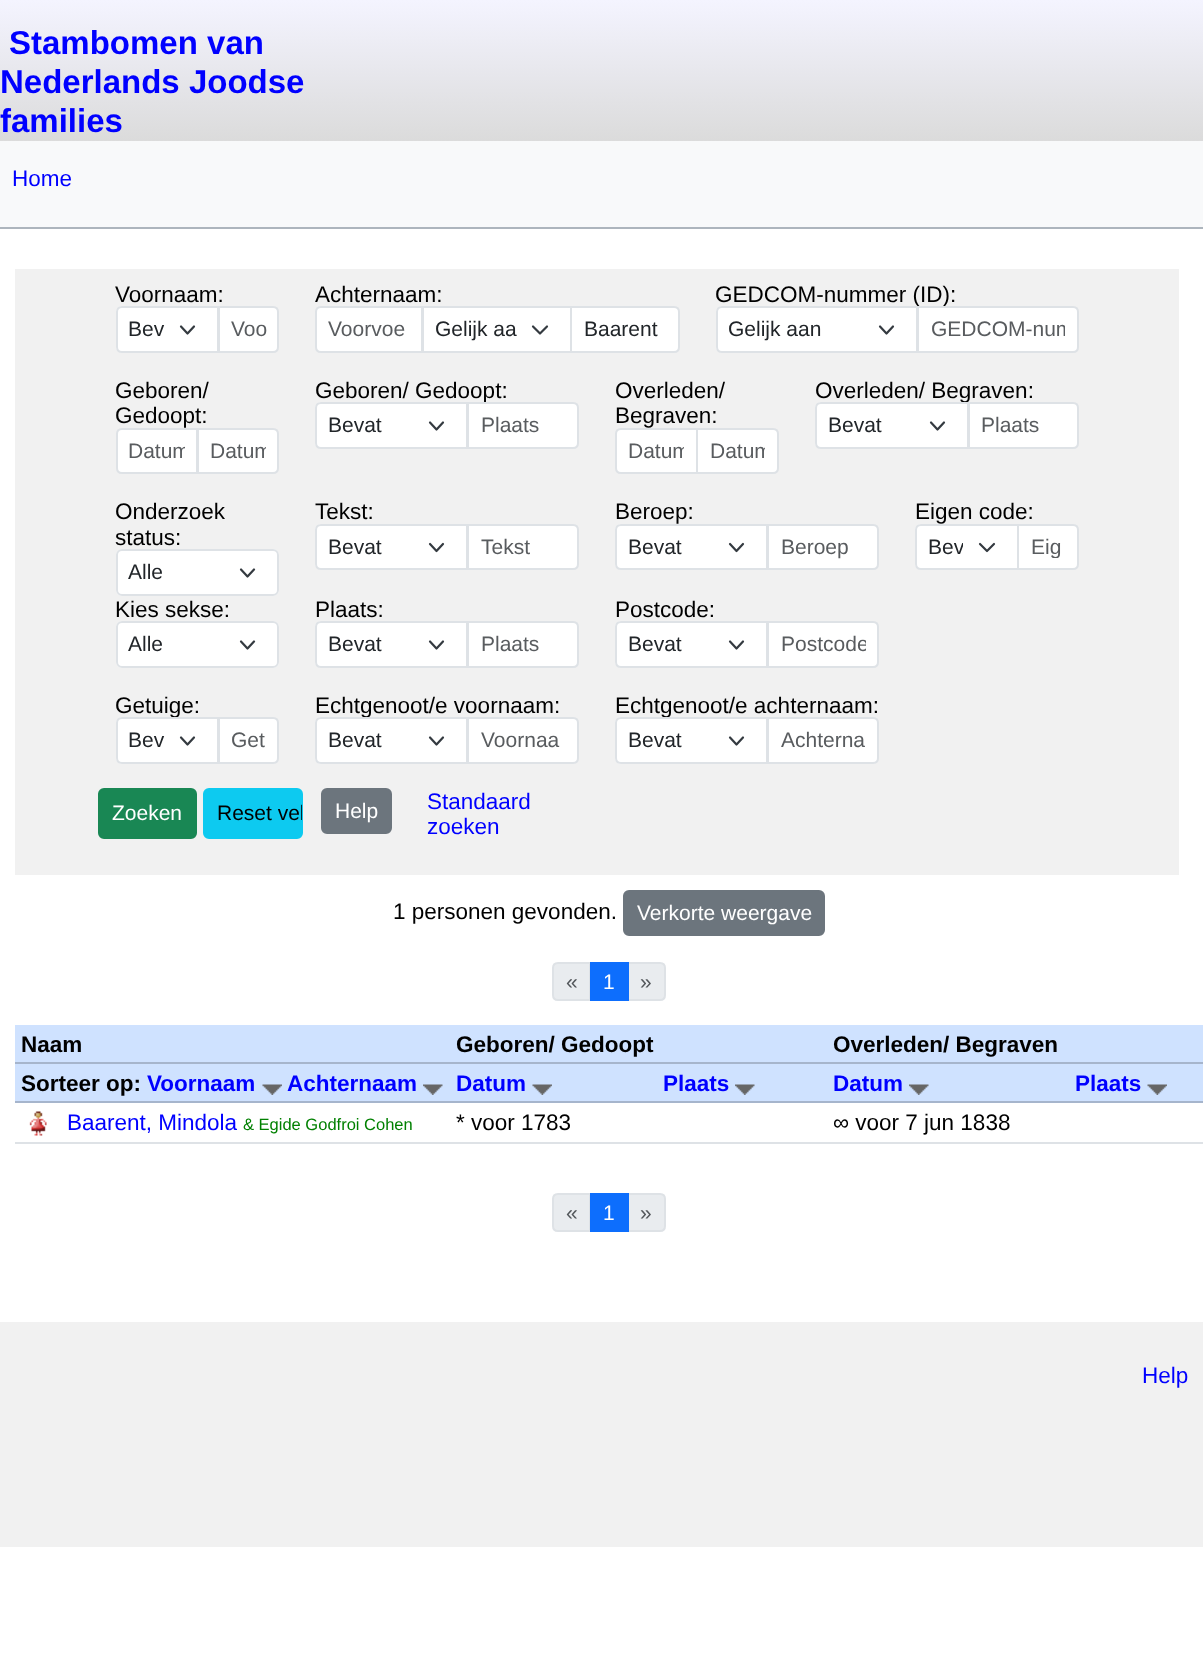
<svg xmlns="http://www.w3.org/2000/svg" width="1203" height="1653" viewBox="0 0 1203 1653">
  <defs>
    <linearGradient id="g1" gradientUnits="userSpaceOnUse" x1="602" y1="0" x2="602" y2="141"><stop offset="0" stop-color="#f4f4ff"/><stop offset="1" stop-color="#dbdbdb"/></linearGradient>
    <clipPath id="clip1"><rect x="930" y="317" width="135" height="24"/></clipPath>
    <clipPath id="clip2"><rect x="129" y="438" width="56" height="24"/></clipPath>
    <clipPath id="clip3"><rect x="210" y="438" width="56" height="24"/></clipPath>
    <clipPath id="clip4"><rect x="629" y="438" width="55" height="24"/></clipPath>
    <clipPath id="clip5"><rect x="710" y="438" width="55" height="24"/></clipPath>
    <clipPath id="clip6"><rect x="929" y="531" width="34" height="32"/></clipPath>
    <clipPath id="clip7"><rect x="1031" y="534" width="34" height="24"/></clipPath>
    <clipPath id="clip8"><rect x="780" y="632" width="86" height="24"/></clipPath>
    <clipPath id="clip9"><rect x="204" y="789" width="98" height="48" rx="5"/></clipPath>
  </defs>
  <rect width="100%" height="100%" fill="#ffffff"/>
  <rect x="0" y="0" width="1203" height="141" fill="url(#g1)"/>
  <text x="9" y="54" font-family="Liberation Sans" font-size="33" font-weight="bold" fill="#0000ff">Stambomen van</text>
  <text x="0" y="93" font-family="Liberation Sans" font-size="33" font-weight="bold" fill="#0000ff">Nederlands Joodse</text>
  <text x="0" y="132" font-family="Liberation Sans" font-size="33" font-weight="bold" fill="#0000ff">families</text>
  <rect x="0" y="141" width="1203" height="86" fill="#f8f9fa"/>
  <rect x="0" y="227" width="1203" height="2" fill="#adb5bd"/>
  <text x="12" y="186" font-family="Liberation Sans" font-size="22.5" fill="#0000ff">Home</text>
  <rect x="15" y="269" width="1164" height="606" fill="#f1f1f1"/>
  <text x="115" y="302" font-family="Liberation Sans" font-size="22.5" fill="#000000">Voornaam:</text>
  <path d="M122 306H219V353H122C118.5 353 116 350.5 116 347V312C116 308.5 118.5 306 122 306Z" fill="#ffffff"/>
  <path d="M181 326.5L187.5 333.5L194 326.5" fill="none" stroke="#343a40" stroke-width="2.2" stroke-linecap="round" stroke-linejoin="round"/>
  <path d="M122 307H218V352H122C119 352 117 350 117 347V312C117 309 119 307 122 307Z" fill="none" stroke="#dee2e6" stroke-width="2"/>
  <text x="128" y="336" font-family="Liberation Sans" font-size="21" fill="#212529">Bev</text>
  <path d="M219 307H273C276 307 278 309 278 312V347C278 350 276 352 273 352H219Z" fill="#ffffff" stroke="#dee2e6" stroke-width="2"/>
  <text x="231" y="336" font-family="Liberation Sans" font-size="21" fill="#595c5f">Voo</text>
  <text x="315" y="302" font-family="Liberation Sans" font-size="22.5" fill="#000000">Achternaam:</text>
  <path d="M321 307H422V352H321C318 352 316 350 316 347V312C316 309 318 307 321 307Z" fill="#ffffff" stroke="#dee2e6" stroke-width="2"/>
  <text x="328" y="336" font-family="Liberation Sans" font-size="21" fill="#595c5f">Voorvoe</text>
  <rect x="424" y="308" width="146" height="43" fill="#ffffff"/>
  <path d="M533 326.5L540 333.5L547 326.5" fill="none" stroke="#343a40" stroke-width="2.2" stroke-linecap="round" stroke-linejoin="round"/>
  <rect x="423" y="307" width="148" height="45" fill="none" stroke="#dee2e6" stroke-width="2"/>
  <text x="435" y="336" font-family="Liberation Sans" font-size="21" fill="#212529">Gelijk aa</text>
  <path d="M571 307H674C677 307 679 309 679 312V347C679 350 677 352 674 352H571Z" fill="#ffffff" stroke="#dee2e6" stroke-width="2"/>
  <text x="584" y="336" font-family="Liberation Sans" font-size="21" fill="#212529">Baarent</text>
  <text x="715" y="302" font-family="Liberation Sans" font-size="22.5" fill="#000000">GEDCOM-nummer (ID):</text>
  <path d="M722 306H918V353H722C718.5 353 716 350.5 716 347V312C716 308.5 718.5 306 722 306Z" fill="#ffffff"/>
  <path d="M880 326.5L886.5 333.5L893 326.5" fill="none" stroke="#343a40" stroke-width="2.2" stroke-linecap="round" stroke-linejoin="round"/>
  <path d="M722 307H917V352H722C719 352 717 350 717 347V312C717 309 719 307 722 307Z" fill="none" stroke="#dee2e6" stroke-width="2"/>
  <text x="728" y="336" font-family="Liberation Sans" font-size="21" fill="#212529">Gelijk aan</text>
  <path d="M918 307H1073C1076 307 1078 309 1078 312V347C1078 350 1076 352 1073 352H918Z" fill="#ffffff" stroke="#dee2e6" stroke-width="2"/>
  <g clip-path="url(#clip1)">
    <text x="931" y="336" font-family="Liberation Sans" font-size="21" fill="#595c5f">GEDCOM-num</text>
  </g>
  <text x="115" y="398" font-family="Liberation Sans" font-size="22.5" fill="#000000">Geboren/</text>
  <text x="115" y="423" font-family="Liberation Sans" font-size="22.5" fill="#000000">Gedoopt:</text>
  <path d="M122 429H197V473H122C119 473 117 471 117 468V434C117 431 119 429 122 429Z" fill="#ffffff" stroke="#dee2e6" stroke-width="2"/>
  <g clip-path="url(#clip2)">
    <text x="128" y="458" font-family="Liberation Sans" font-size="21" fill="#595c5f">Datum</text>
  </g>
  <path d="M198 429H273C276 429 278 431 278 434V468C278 471 276 473 273 473H198Z" fill="#ffffff" stroke="#dee2e6" stroke-width="2"/>
  <g clip-path="url(#clip3)">
    <text x="210" y="458" font-family="Liberation Sans" font-size="21" fill="#595c5f">Datum</text>
  </g>
  <text x="315" y="398" font-family="Liberation Sans" font-size="22.5" fill="#000000">Geboren/ Gedoopt:</text>
  <path d="M321 402H468V449H321C317.5 449 315 446.5 315 443V408C315 404.5 317.5 402 321 402Z" fill="#ffffff"/>
  <path d="M430 422.5L436.5 429.5L443 422.5" fill="none" stroke="#343a40" stroke-width="2.2" stroke-linecap="round" stroke-linejoin="round"/>
  <path d="M321 403H467V448H321C318 448 316 446 316 443V408C316 405 318 403 321 403Z" fill="none" stroke="#dee2e6" stroke-width="2"/>
  <text x="328" y="432" font-family="Liberation Sans" font-size="21" fill="#212529">Bevat</text>
  <path d="M468 403H573C576 403 578 405 578 408V443C578 446 576 448 573 448H468Z" fill="#ffffff" stroke="#dee2e6" stroke-width="2"/>
  <text x="481" y="432" font-family="Liberation Sans" font-size="21" fill="#595c5f">Plaats</text>
  <text x="615" y="398" font-family="Liberation Sans" font-size="22.5" fill="#000000">Overleden/</text>
  <text x="615" y="423" font-family="Liberation Sans" font-size="22.5" fill="#000000">Begraven:</text>
  <path d="M621 429H697V473H621C618 473 616 471 616 468V434C616 431 618 429 621 429Z" fill="#ffffff" stroke="#dee2e6" stroke-width="2"/>
  <g clip-path="url(#clip4)">
    <text x="628" y="458" font-family="Liberation Sans" font-size="21" fill="#595c5f">Datum</text>
  </g>
  <path d="M697 429H773C776 429 778 431 778 434V468C778 471 776 473 773 473H697Z" fill="#ffffff" stroke="#dee2e6" stroke-width="2"/>
  <g clip-path="url(#clip5)">
    <text x="710" y="458" font-family="Liberation Sans" font-size="21" fill="#595c5f">Datum</text>
  </g>
  <text x="815" y="398" font-family="Liberation Sans" font-size="22.5" fill="#000000">Overleden/ Begraven:</text>
  <path d="M821 402H969V449H821C817.5 449 815 446.5 815 443V408C815 404.5 817.5 402 821 402Z" fill="#ffffff"/>
  <path d="M931 422.5L937.5 429.5L944 422.5" fill="none" stroke="#343a40" stroke-width="2.2" stroke-linecap="round" stroke-linejoin="round"/>
  <path d="M821 403H968V448H821C818 448 816 446 816 443V408C816 405 818 403 821 403Z" fill="none" stroke="#dee2e6" stroke-width="2"/>
  <text x="828" y="432" font-family="Liberation Sans" font-size="21" fill="#212529">Bevat</text>
  <path d="M969 403H1073C1076 403 1078 405 1078 408V443C1078 446 1076 448 1073 448H969Z" fill="#ffffff" stroke="#dee2e6" stroke-width="2"/>
  <text x="981" y="432" font-family="Liberation Sans" font-size="21" fill="#595c5f">Plaats</text>
  <text x="115" y="519" font-family="Liberation Sans" font-size="22.5" fill="#000000">Onderzoek</text>
  <text x="115" y="545" font-family="Liberation Sans" font-size="22.5" fill="#000000">status:</text>
  <rect x="116" y="549" width="163" height="47" rx="6" fill="#ffffff"/>
  <path d="M241 569.5L247.5 576.5L254 569.5" fill="none" stroke="#343a40" stroke-width="2.2" stroke-linecap="round" stroke-linejoin="round"/>
  <rect x="117" y="550" width="161" height="45" rx="5" fill="none" stroke="#dee2e6" stroke-width="2"/>
  <text x="128" y="579" font-family="Liberation Sans" font-size="21" fill="#212529">Alle</text>
  <text x="315" y="519" font-family="Liberation Sans" font-size="22.5" fill="#000000">Tekst:</text>
  <path d="M321 524H468V570H321C317.5 570 315 567.5 315 564V530C315 526.5 317.5 524 321 524Z" fill="#ffffff"/>
  <path d="M430 544L436.5 551L443 544" fill="none" stroke="#343a40" stroke-width="2.2" stroke-linecap="round" stroke-linejoin="round"/>
  <path d="M321 525H467V569H321C318 569 316 567 316 564V530C316 527 318 525 321 525Z" fill="none" stroke="#dee2e6" stroke-width="2"/>
  <text x="328" y="554" font-family="Liberation Sans" font-size="21" fill="#212529">Bevat</text>
  <path d="M468 525H573C576 525 578 527 578 530V564C578 567 576 569 573 569H468Z" fill="#ffffff" stroke="#dee2e6" stroke-width="2"/>
  <text x="481" y="554" font-family="Liberation Sans" font-size="21" fill="#595c5f">Tekst</text>
  <text x="615" y="519" font-family="Liberation Sans" font-size="22.5" fill="#000000">Beroep:</text>
  <path d="M621 524H768V570H621C617.5 570 615 567.5 615 564V530C615 526.5 617.5 524 621 524Z" fill="#ffffff"/>
  <path d="M730 544L736.5 551L743 544" fill="none" stroke="#343a40" stroke-width="2.2" stroke-linecap="round" stroke-linejoin="round"/>
  <path d="M621 525H767V569H621C618 569 616 567 616 564V530C616 527 618 525 621 525Z" fill="none" stroke="#dee2e6" stroke-width="2"/>
  <text x="628" y="554" font-family="Liberation Sans" font-size="21" fill="#212529">Bevat</text>
  <path d="M768 525H873C876 525 878 527 878 530V564C878 567 876 569 873 569H768Z" fill="#ffffff" stroke="#dee2e6" stroke-width="2"/>
  <text x="781" y="554" font-family="Liberation Sans" font-size="21" fill="#595c5f">Beroep</text>
  <text x="915" y="519" font-family="Liberation Sans" font-size="22.5" fill="#000000">Eigen code:</text>
  <path d="M921 524H1019V570H921C917.5 570 915 567.5 915 564V530C915 526.5 917.5 524 921 524Z" fill="#ffffff"/>
  <path d="M980 544L987 551L994 544" fill="none" stroke="#343a40" stroke-width="2.2" stroke-linecap="round" stroke-linejoin="round"/>
  <path d="M921 525H1018V569H921C918 569 916 567 916 564V530C916 527 918 525 921 525Z" fill="none" stroke="#dee2e6" stroke-width="2"/>
  <g clip-path="url(#clip6)">
    <text x="928" y="554" font-family="Liberation Sans" font-size="21" fill="#212529">Bev</text>
  </g>
  <path d="M1018 525H1073C1076 525 1078 527 1078 530V564C1078 567 1076 569 1073 569H1018Z" fill="#ffffff" stroke="#dee2e6" stroke-width="2"/>
  <g clip-path="url(#clip7)">
    <text x="1031" y="554" font-family="Liberation Sans" font-size="21" fill="#595c5f">Eig</text>
  </g>
  <text x="115" y="617" font-family="Liberation Sans" font-size="22.5" fill="#000000">Kies sekse:</text>
  <rect x="116" y="621" width="163" height="47" rx="6" fill="#ffffff"/>
  <path d="M241 641.5L247.5 648.5L254 641.5" fill="none" stroke="#343a40" stroke-width="2.2" stroke-linecap="round" stroke-linejoin="round"/>
  <rect x="117" y="622" width="161" height="45" rx="5" fill="none" stroke="#dee2e6" stroke-width="2"/>
  <text x="128" y="651" font-family="Liberation Sans" font-size="21" fill="#212529">Alle</text>
  <text x="315" y="617" font-family="Liberation Sans" font-size="22.5" fill="#000000">Plaats:</text>
  <path d="M321 621H468V668H321C317.5 668 315 665.5 315 662V627C315 623.5 317.5 621 321 621Z" fill="#ffffff"/>
  <path d="M430 641.5L436.5 648.5L443 641.5" fill="none" stroke="#343a40" stroke-width="2.2" stroke-linecap="round" stroke-linejoin="round"/>
  <path d="M321 622H467V667H321C318 667 316 665 316 662V627C316 624 318 622 321 622Z" fill="none" stroke="#dee2e6" stroke-width="2"/>
  <text x="328" y="651" font-family="Liberation Sans" font-size="21" fill="#212529">Bevat</text>
  <path d="M468 622H573C576 622 578 624 578 627V662C578 665 576 667 573 667H468Z" fill="#ffffff" stroke="#dee2e6" stroke-width="2"/>
  <text x="481" y="651" font-family="Liberation Sans" font-size="21" fill="#595c5f">Plaats</text>
  <text x="615" y="617" font-family="Liberation Sans" font-size="22.5" fill="#000000">Postcode:</text>
  <path d="M621 621H768V668H621C617.5 668 615 665.5 615 662V627C615 623.5 617.5 621 621 621Z" fill="#ffffff"/>
  <path d="M730 641.5L736.5 648.5L743 641.5" fill="none" stroke="#343a40" stroke-width="2.2" stroke-linecap="round" stroke-linejoin="round"/>
  <path d="M621 622H767V667H621C618 667 616 665 616 662V627C616 624 618 622 621 622Z" fill="none" stroke="#dee2e6" stroke-width="2"/>
  <text x="628" y="651" font-family="Liberation Sans" font-size="21" fill="#212529">Bevat</text>
  <path d="M768 622H873C876 622 878 624 878 627V662C878 665 876 667 873 667H768Z" fill="#ffffff" stroke="#dee2e6" stroke-width="2"/>
  <g clip-path="url(#clip8)">
    <text x="781" y="651" font-family="Liberation Sans" font-size="21" fill="#595c5f">Postcode</text>
  </g>
  <text x="115" y="713" font-family="Liberation Sans" font-size="22.5" fill="#000000">Getuige:</text>
  <path d="M122 717H219V764H122C118.5 764 116 761.5 116 758V723C116 719.5 118.5 717 122 717Z" fill="#ffffff"/>
  <path d="M181 737.5L187.5 744.5L194 737.5" fill="none" stroke="#343a40" stroke-width="2.2" stroke-linecap="round" stroke-linejoin="round"/>
  <path d="M122 718H218V763H122C119 763 117 761 117 758V723C117 720 119 718 122 718Z" fill="none" stroke="#dee2e6" stroke-width="2"/>
  <text x="128" y="747" font-family="Liberation Sans" font-size="21" fill="#212529">Bev</text>
  <path d="M219 718H273C276 718 278 720 278 723V758C278 761 276 763 273 763H219Z" fill="#ffffff" stroke="#dee2e6" stroke-width="2"/>
  <text x="231" y="747" font-family="Liberation Sans" font-size="21" fill="#595c5f">Get</text>
  <text x="315" y="713" font-family="Liberation Sans" font-size="22.5" fill="#000000">Echtgenoot/e voornaam:</text>
  <path d="M321 717H468V764H321C317.5 764 315 761.5 315 758V723C315 719.5 317.5 717 321 717Z" fill="#ffffff"/>
  <path d="M430 737.5L436.5 744.5L443 737.5" fill="none" stroke="#343a40" stroke-width="2.2" stroke-linecap="round" stroke-linejoin="round"/>
  <path d="M321 718H467V763H321C318 763 316 761 316 758V723C316 720 318 718 321 718Z" fill="none" stroke="#dee2e6" stroke-width="2"/>
  <text x="328" y="747" font-family="Liberation Sans" font-size="21" fill="#212529">Bevat</text>
  <path d="M468 718H573C576 718 578 720 578 723V758C578 761 576 763 573 763H468Z" fill="#ffffff" stroke="#dee2e6" stroke-width="2"/>
  <text x="481" y="747" font-family="Liberation Sans" font-size="21" fill="#595c5f">Voornaa</text>
  <text x="615" y="713" font-family="Liberation Sans" font-size="22.5" fill="#000000">Echtgenoot/e achternaam:</text>
  <path d="M621 717H768V764H621C617.5 764 615 761.5 615 758V723C615 719.5 617.5 717 621 717Z" fill="#ffffff"/>
  <path d="M730 737.5L736.5 744.5L743 737.5" fill="none" stroke="#343a40" stroke-width="2.2" stroke-linecap="round" stroke-linejoin="round"/>
  <path d="M621 718H767V763H621C618 763 616 761 616 758V723C616 720 618 718 621 718Z" fill="none" stroke="#dee2e6" stroke-width="2"/>
  <text x="628" y="747" font-family="Liberation Sans" font-size="21" fill="#212529">Bevat</text>
  <path d="M768 718H873C876 718 878 720 878 723V758C878 761 876 763 873 763H768Z" fill="#ffffff" stroke="#dee2e6" stroke-width="2"/>
  <text x="781" y="747" font-family="Liberation Sans" font-size="21" fill="#595c5f">Achterna</text>
  <rect x="99" y="789" width="97" height="49" rx="5" fill="#198754" stroke="#198754" stroke-width="2"/>
  <text x="112" y="820" font-family="Liberation Sans" font-size="21" fill="#ffffff">Zoeken</text>
  <rect x="204" y="789" width="98" height="49" rx="5" fill="#0dcaf0" stroke="#0dcaf0" stroke-width="2"/>
  <g clip-path="url(#clip9)">
    <text x="217" y="820" font-family="Liberation Sans" font-size="21" fill="#000000">Reset vel</text>
  </g>
  <rect x="322" y="789" width="69" height="44" rx="5" fill="#6c757d" stroke="#6c757d" stroke-width="2"/>
  <text x="335" y="818" font-family="Liberation Sans" font-size="21" fill="#ffffff">Help</text>
  <text x="427" y="809" font-family="Liberation Sans" font-size="22.5" fill="#0000ff">Standaard</text>
  <text x="427" y="834" font-family="Liberation Sans" font-size="22.5" fill="#0000ff">zoeken</text>
  <text x="393" y="919" font-family="Liberation Sans" font-size="22.5" fill="#000000">1 personen gevonden.</text>
  <rect x="624" y="891" width="200" height="44" rx="5" fill="#6c757d" stroke="#6c757d" stroke-width="2"/>
  <text x="637" y="920" font-family="Liberation Sans" font-size="21" fill="#ffffff">Verkorte weergave</text>
  <path d="M558 963H590V1000H558C555 1000 553 998 553 995V968C553 965 555 963 558 963Z" fill="#e9ecef" stroke="#dee2e6" stroke-width="2"/>
  <text x="566" y="989" font-family="Liberation Sans" font-size="21" fill="#53575b">«</text>
  <path d="M628 963H660C663 963 665 965 665 968V995C665 998 663 1000 660 1000H628Z" fill="#e9ecef" stroke="#dee2e6" stroke-width="2"/>
  <rect x="590" y="962" width="39" height="39" fill="#0d6efd"/>
  <text x="603" y="989" font-family="Liberation Sans" font-size="21" fill="#ffffff">1</text>
  <text x="640" y="989" font-family="Liberation Sans" font-size="21" fill="#53575b">»</text>
  <rect x="15" y="1025" width="1188" height="37" fill="#cfe2ff"/>
  <text x="21" y="1052" font-family="Liberation Sans" font-size="22.5" font-weight="bold" fill="#000000">Naam</text>
  <text x="456" y="1052" font-family="Liberation Sans" font-size="22.5" font-weight="bold" fill="#000000">Geboren/ Gedoopt</text>
  <rect x="15" y="1062" width="1188" height="2" fill="#a6b5cc"/>
  <text x="833" y="1052" font-family="Liberation Sans" font-size="22.5" font-weight="bold" fill="#000000">Overleden/ Begraven</text>
  <rect x="15" y="1064" width="1188" height="37" fill="#cfe2ff"/>
  <text x="21" y="1091" font-family="Liberation Sans" font-size="22.5" font-weight="bold" fill="#000000">Sorteer op:</text>
  <text x="147" y="1091" font-family="Liberation Sans" font-size="22.5" font-weight="bold" fill="#0000ff">Voornaam</text>
  <image x="262" y="1084" width="20" height="11" href="img1.png"/>
  <text x="287" y="1091" font-family="Liberation Sans" font-size="22.5" font-weight="bold" fill="#0000ff">Achternaam</text>
  <image x="423" y="1084" width="20" height="11" href="img2.png"/>
  <text x="456" y="1091" font-family="Liberation Sans" font-size="22.5" font-weight="bold" fill="#0000ff">Datum</text>
  <image x="532" y="1084" width="20" height="11" href="img3.png"/>
  <text x="663" y="1091" font-family="Liberation Sans" font-size="22.5" font-weight="bold" fill="#0000ff">Plaats</text>
  <image x="735" y="1084" width="20" height="11" href="img2.png"/>
  <text x="833" y="1091" font-family="Liberation Sans" font-size="22.5" font-weight="bold" fill="#0000ff">Datum</text>
  <image x="909" y="1084" width="20" height="11" href="img4.png"/>
  <rect x="15" y="1101" width="1188" height="2" fill="#a6b5cc"/>
  <text x="1075" y="1091" font-family="Liberation Sans" font-size="22.5" font-weight="bold" fill="#0000ff">Plaats</text>
  <image x="1147" y="1084" width="20" height="11" href="img3.png"/>
  <image x="29" y="1111" width="18" height="25" href="img5.png"/>
  <text x="67" y="1130" font-family="Liberation Sans" font-size="22.5" fill="#0000ff">Baarent, Mindola</text>
  <text x="243" y="1130" font-family="Liberation Sans" font-size="16.5" fill="#008000">&amp; Egide Godfroi Cohen</text>
  <text x="456" y="1130" font-family="Liberation Sans" font-size="22.5" fill="#000000">* voor 1783</text>
  <text x="833" y="1130" font-family="Liberation Sans" font-size="22.5" fill="#000000">∞ voor 7 jun 1838</text>
  <rect x="15" y="1142" width="1188" height="2" fill="#dee2e6"/>
  <path d="M558 1194H590V1231H558C555 1231 553 1229 553 1226V1199C553 1196 555 1194 558 1194Z" fill="#e9ecef" stroke="#dee2e6" stroke-width="2"/>
  <text x="566" y="1220" font-family="Liberation Sans" font-size="21" fill="#53575b">«</text>
  <path d="M628 1194H660C663 1194 665 1196 665 1199V1226C665 1229 663 1231 660 1231H628Z" fill="#e9ecef" stroke="#dee2e6" stroke-width="2"/>
  <rect x="590" y="1193" width="39" height="39" fill="#0d6efd"/>
  <text x="603" y="1220" font-family="Liberation Sans" font-size="21" fill="#ffffff">1</text>
  <text x="640" y="1220" font-family="Liberation Sans" font-size="21" fill="#53575b">»</text>
  <rect x="0" y="1322" width="1203" height="225" fill="#f1f1f1"/>
  <text x="1142" y="1383" font-family="Liberation Sans" font-size="22.5" fill="#0000ff">Help</text>
</svg>
